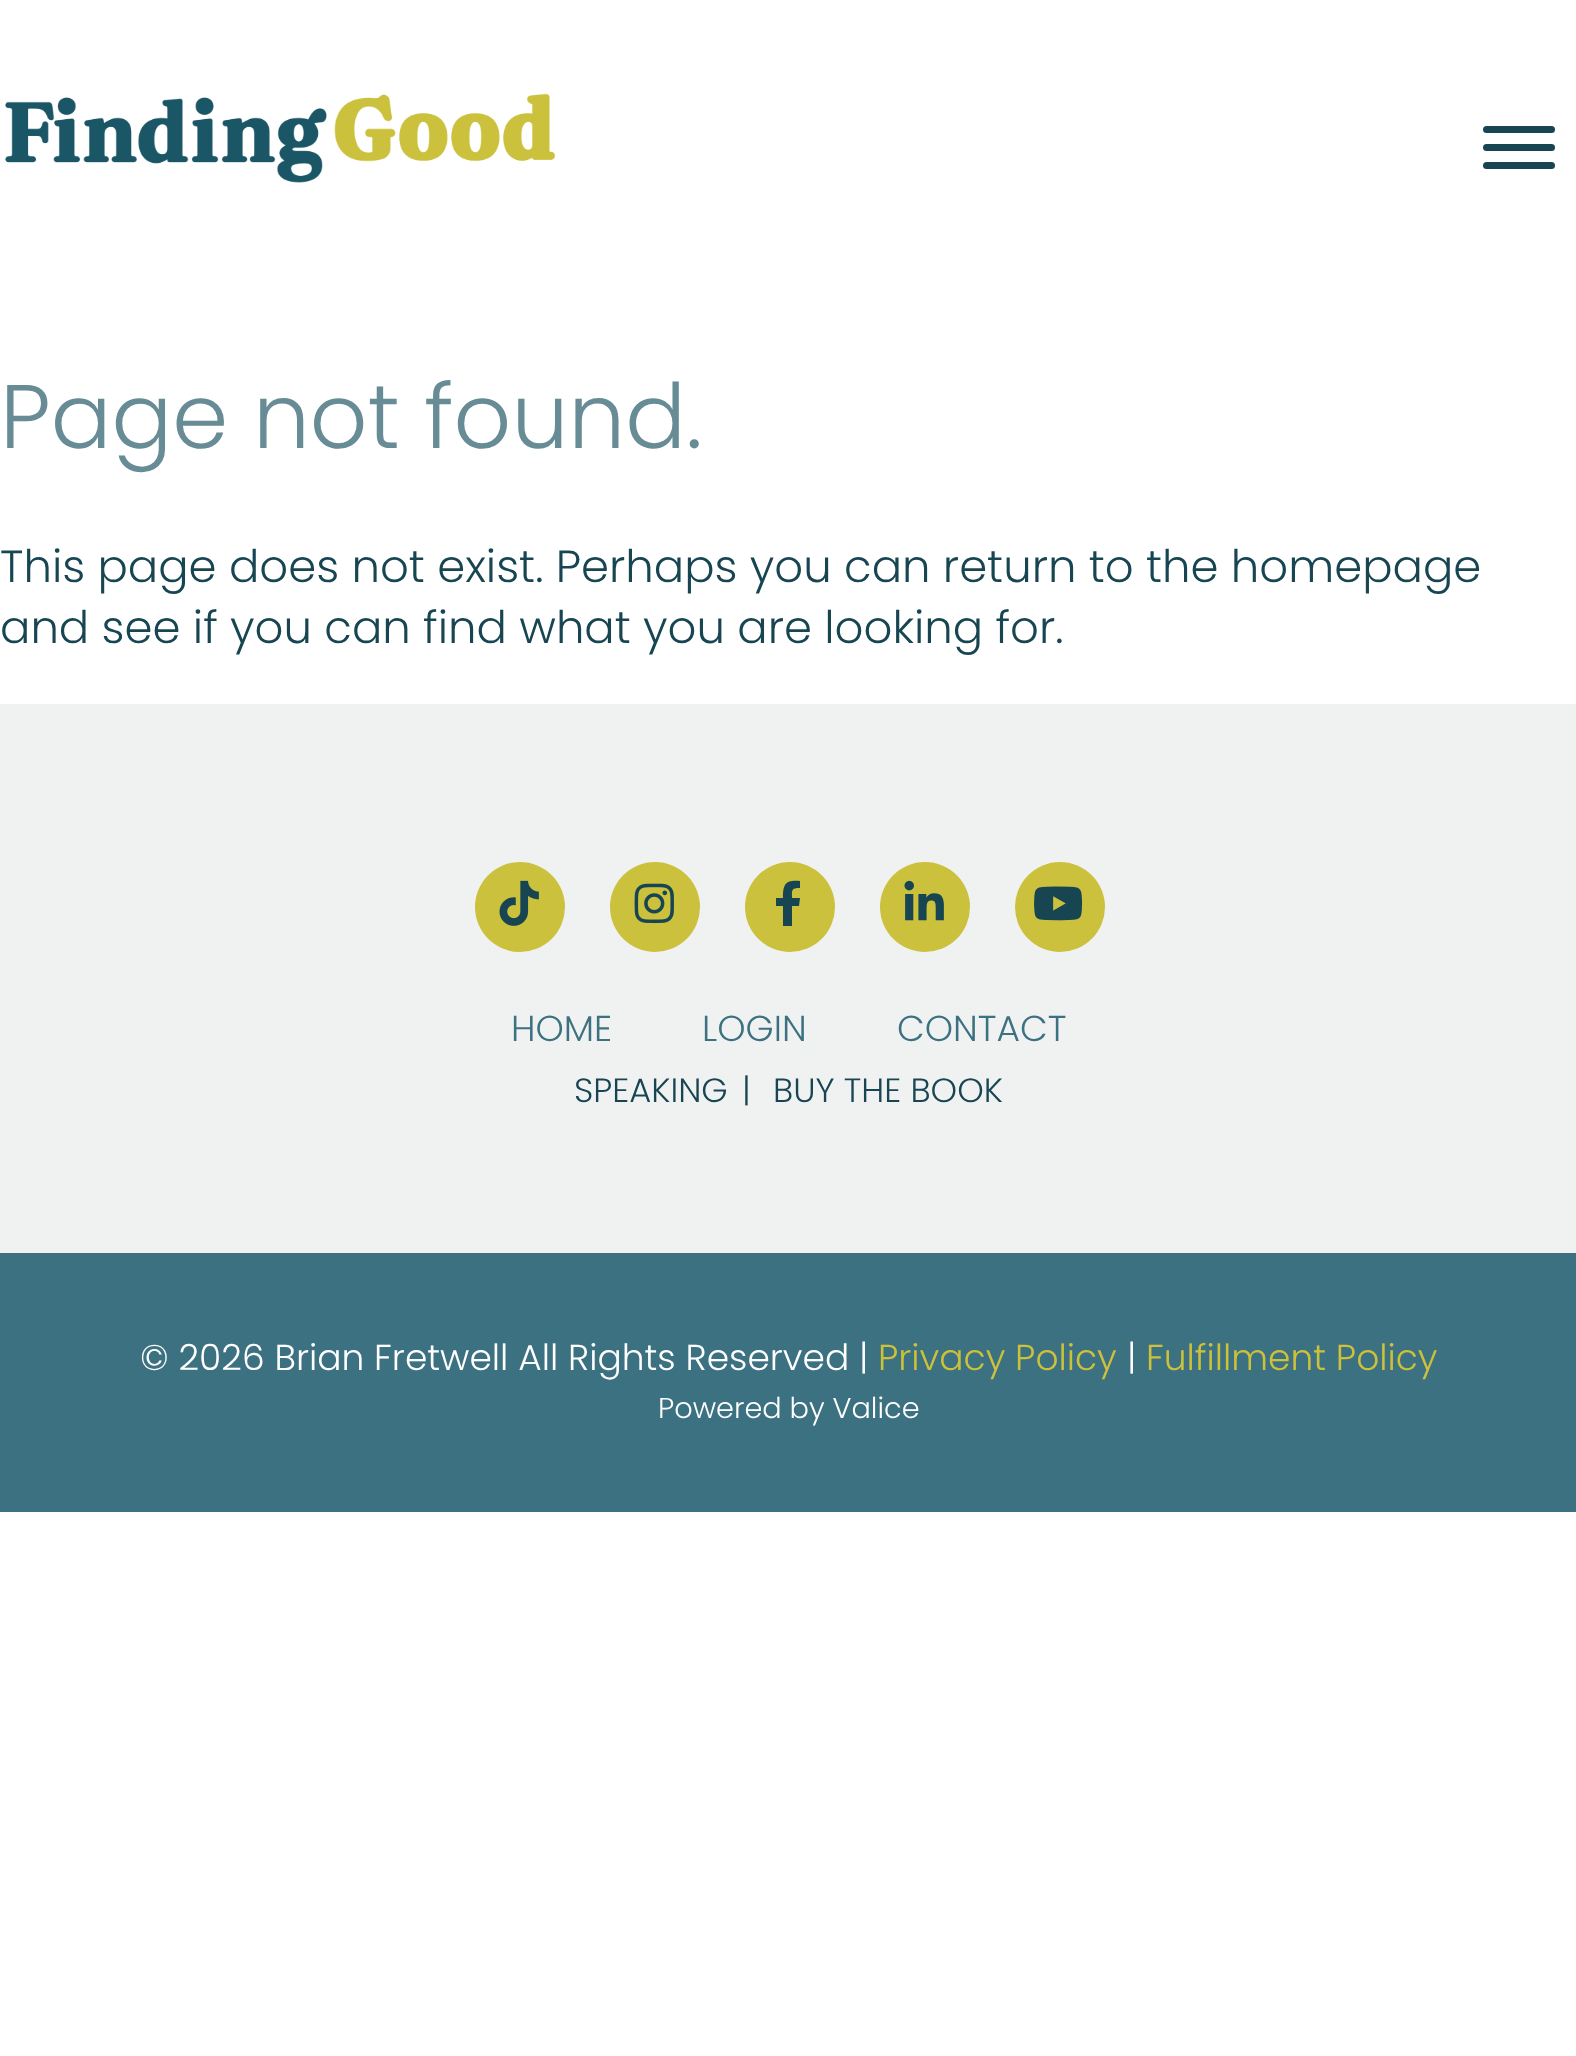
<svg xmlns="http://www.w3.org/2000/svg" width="1576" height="2056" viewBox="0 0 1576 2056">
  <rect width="100%" height="100%" fill="#ffffff"/>
  <image x="5" y="93" width="551" height="90" href="img1.png"/>
  <rect x="1483" y="126" width="72" height="7" rx="3.5" fill="#174552"/>
  <rect x="1483" y="144" width="72" height="7" rx="3.5" fill="#174552"/>
  <rect x="1483" y="162" width="72" height="7" rx="3.5" fill="#174552"/>
  <text x="0" y="448" font-family="Poppins" font-size="90" font-weight="300" fill="#678c95">Page not found.</text>
  <text x="0" y="582" font-family="Poppins" font-size="45" font-weight="300" fill="#174552">This page does not exist. Perhaps you can return to the homepage</text>
  <text x="0" y="643" font-family="Poppins" font-size="45" font-weight="300" fill="#174552">and see if you can find what you are looking for.</text>
  <rect x="0" y="1253" width="1576" height="259" fill="#3c7181"/>
  <rect x="0" y="704" width="1576" height="549" fill="#f0f2f2"/>
  <circle cx="520" cy="907" r="45" fill="#cbc13d"/>
  <image x="499" y="880" width="40" height="46" href="img2.png"/>
  <circle cx="655" cy="907" r="45" fill="#cbc13d"/>
  <image x="634" y="883" width="40" height="41" href="img3.png"/>
  <circle cx="790" cy="907" r="45" fill="#cbc13d"/>
  <path d="M799 906H792V926H783V906H776V898H783C783 883 786 880 800 881V888C791 888 792 890 792 898H800Z" fill="#174552"/>
  <circle cx="925" cy="907" r="45" fill="#cbc13d"/>
  <image x="904" y="880" width="40" height="41" href="img4.png"/>
  <circle cx="1060" cy="907" r="45" fill="#cbc13d"/>
  <image x="1034" y="886" width="49" height="35" href="img5.png"/>
  <text x="511" y="1041" font-family="Poppins" font-size="36" font-weight="300" fill="#3c7181">HOME</text>
  <text x="702" y="1041" font-family="Poppins" font-size="36" font-weight="300" fill="#3c7181">LOGIN</text>
  <text x="897" y="1041" font-family="Poppins" font-size="36" font-weight="300" fill="#3c7181">CONTACT</text>
  <text x="574" y="1102" font-family="Poppins" font-size="33.75" font-weight="300" fill="#174552">SPEAKING</text>
  <text x="742" y="1102" font-family="Poppins" font-size="33.75" font-weight="300" fill="#174552">|</text>
  <text x="773" y="1102" font-family="Poppins" font-size="33.75" font-weight="300" fill="#174552">BUY THE BOOK</text>
  <text x="140" y="1370" font-family="Poppins" font-size="36" font-weight="300" fill="#ffffff">© 2026 Brian Fretwell All Rights Reserved |</text>
  <text x="878" y="1370" font-family="Poppins" font-size="36" font-weight="300" fill="#cdc13b">Privacy Policy</text>
  <text x="1127" y="1370" font-family="Poppins" font-size="36" font-weight="300" fill="#ffffff">|</text>
  <text x="1146" y="1370" font-family="Poppins" font-size="36" font-weight="300" fill="#cdc13b">Fulfillment Policy</text>
  <text x="658" y="1418" font-family="Poppins" font-size="28.75" font-weight="300" fill="#ffffff">Powered by Valice</text>
</svg>
